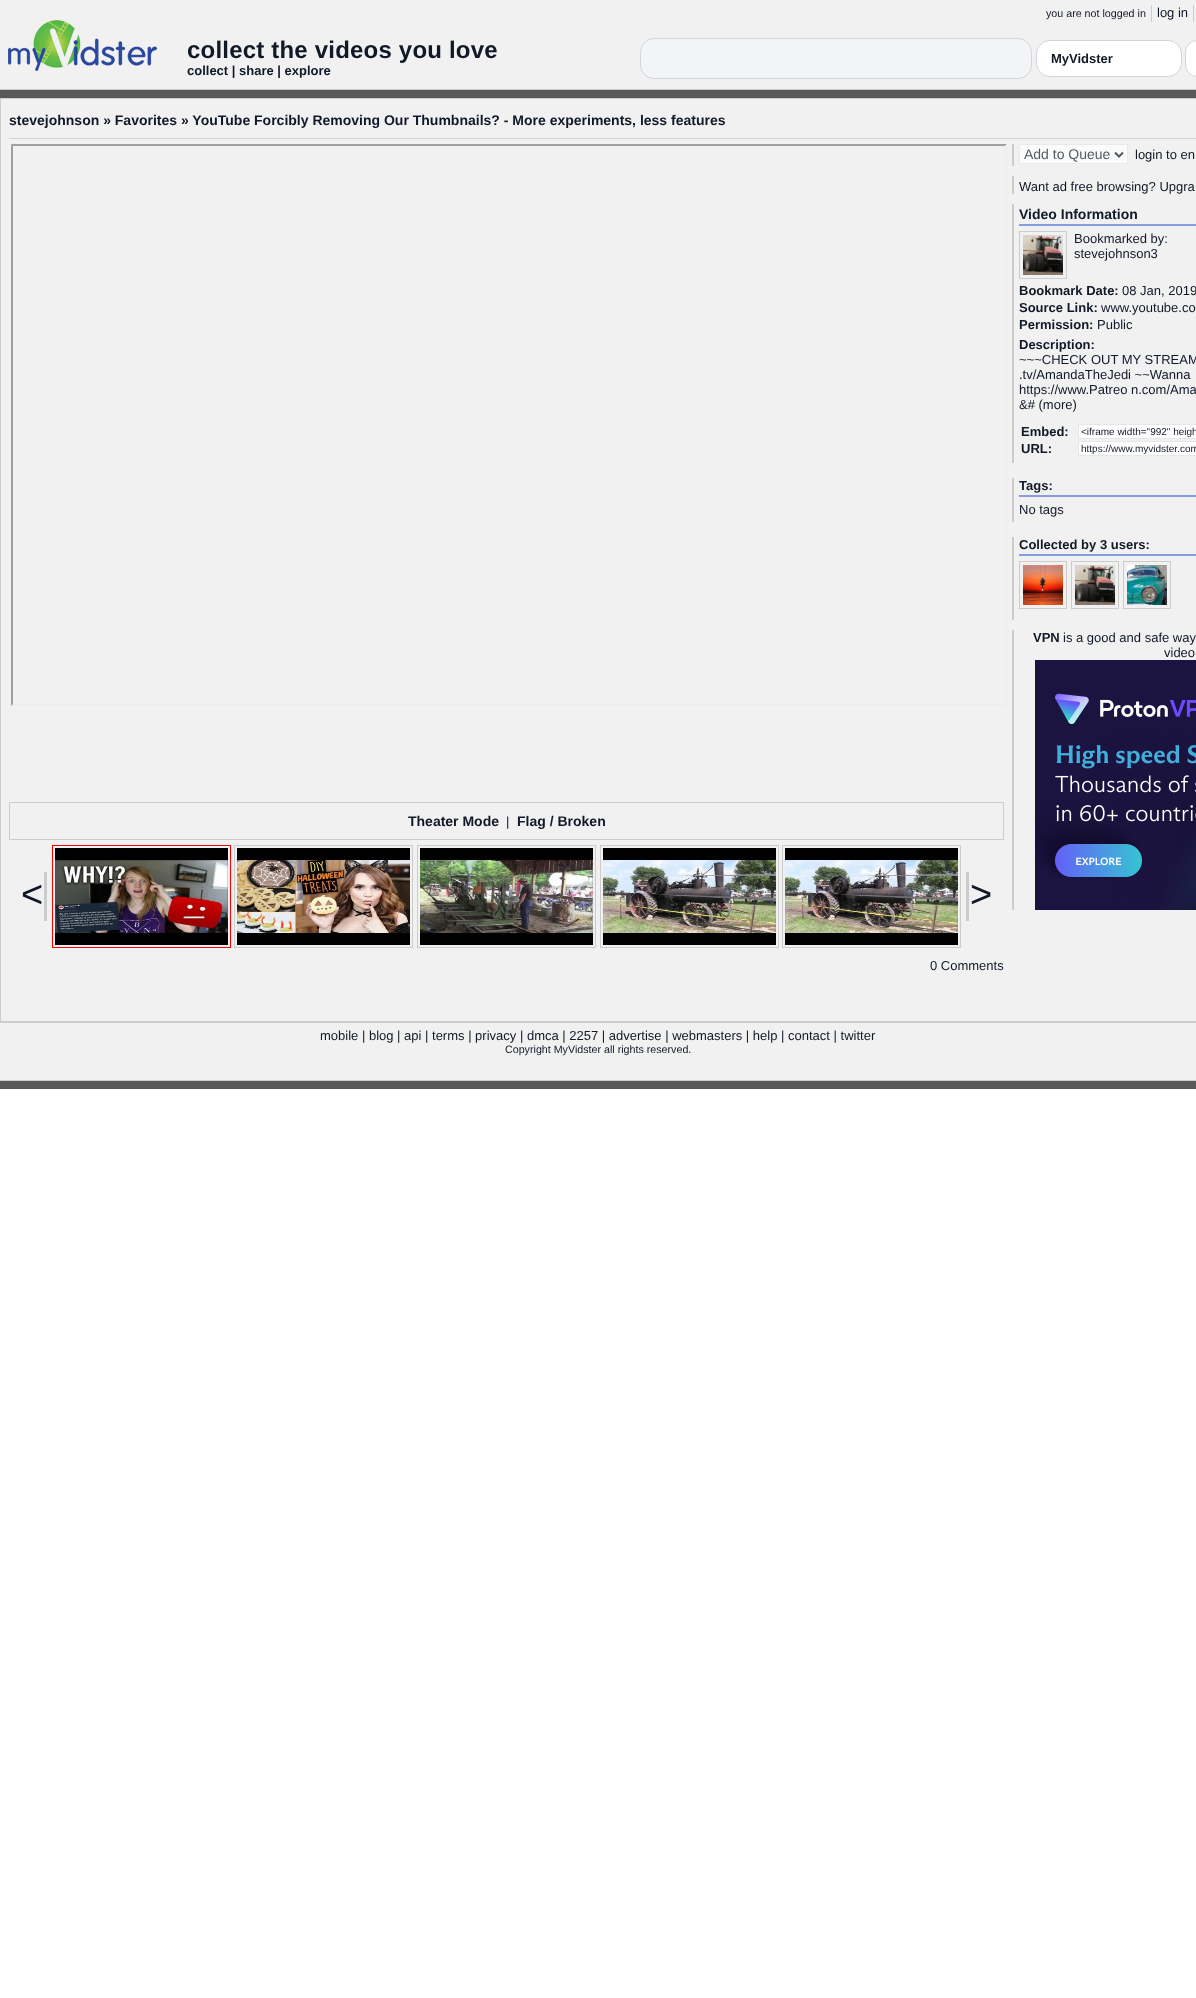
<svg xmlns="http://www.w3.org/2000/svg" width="1196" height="1998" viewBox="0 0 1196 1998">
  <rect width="100%" height="100%" fill="#ffffff"/>
  <rect x="0" y="0" width="1196" height="89" fill="#f1f1f1"/>
  <rect x="0" y="89" width="1196" height="1" fill="#cccccc"/>
  <image x="8" y="20" width="149" height="51" href="img1.png"/>
  <rect x="1151" y="5" width="1" height="17" fill="#cccccc"/>
  <text x="1046" y="17" font-family="Liberation Sans" font-size="10.7" fill="#111827">you are not logged in</text>
  <rect x="1193" y="5" width="1" height="17" fill="#cccccc"/>
  <text x="1157" y="17" font-family="Liberation Sans" font-size="13" fill="#111827">log in</text>
  <text x="187" y="58" font-family="Liberation Sans" font-size="24" font-weight="bold" letter-spacing="0.2" fill="#111827">collect the videos you love</text>
  <text x="187" y="75" font-family="Liberation Sans" font-size="13" font-weight="bold" fill="#111827">collect | share | explore</text>
  <rect x="640.5" y="38.5" width="391" height="40" rx="13.5" fill="#f3f4f6" stroke="#d1d5db"/>
  <rect x="1036.5" y="40.5" width="145" height="36" rx="13.5" fill="#ffffff" stroke="#d1d5db"/>
  <text x="1051" y="63" font-family="Liberation Sans" font-size="13" font-weight="bold" fill="#111827">MyVidster</text>
  <rect x="1185.5" y="40.5" width="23" height="36" rx="11.5" fill="#ffffff" stroke="#d1d5db"/>
  <rect x="0" y="90" width="1196" height="999" fill="#595959"/>
  <rect x="0.5" y="98.5" width="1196" height="923" fill="#f1f1f1" stroke="#cccccc"/>
  <rect x="9" y="138" width="1187" height="1" fill="#d1d5db"/>
  <text x="9" y="125" font-family="Liberation Sans" font-size="14" font-weight="bold" fill="#111827">stevejohnson » Favorites » YouTube Forcibly Removing Our Thumbnails? - More experiments, less features</text>
  <rect x="1012" y="144" width="2" height="22" fill="#cccccc"/>
  <rect x="1019.5" y="144.5" width="108" height="19" fill="#fbfbfb" stroke="#e9eaed"/>
  <path d="M1115 152.5L1119 156.5L1123 152.5" fill="none" stroke="#545964" stroke-width="2"/>
  <text x="1024" y="159" font-family="Liberation Sans" font-size="14" fill="#545964">Add to Queue</text>
  <text x="1135" y="159" font-family="Liberation Sans" font-size="13" fill="#111827">login to en</text>
  <rect x="1012" y="176" width="2" height="18" fill="#cccccc"/>
  <text x="1019" y="191" font-family="Liberation Sans" font-size="13" fill="#111827">Want ad free browsing? Upgra</text>
  <rect x="1012" y="204" width="2" height="259" fill="#cccccc"/>
  <text x="1019" y="219" font-family="Liberation Sans" font-size="14" font-weight="bold" fill="#111827">Video Information</text>
  <rect x="1019" y="224" width="177" height="2" fill="#879ede"/>
  <rect x="1019.5" y="231.5" width="47" height="47" fill="none" stroke="#cccccc"/>
  <image x="1023" y="235" width="40" height="40" href="img2.png"/>
  <text x="1074" y="243" font-family="Liberation Sans" font-size="13" fill="#111827">Bookmarked by:</text>
  <text x="1074" y="258" font-family="Liberation Sans" font-size="13" fill="#111827">stevejohnson3</text>
  <text x="1019" y="295" font-family="Liberation Sans" font-size="13" font-weight="bold" fill="#111827">Bookmark Date:</text>
  <text x="1122" y="295" font-family="Liberation Sans" font-size="13" fill="#111827">08 Jan, 2019</text>
  <text x="1019" y="312" font-family="Liberation Sans" font-size="13" font-weight="bold" fill="#111827">Source Link:</text>
  <text x="1101" y="312" font-family="Liberation Sans" font-size="13" fill="#111827">www.youtube.co</text>
  <text x="1019" y="329" font-family="Liberation Sans" font-size="13" font-weight="bold" fill="#111827">Permission:</text>
  <text x="1097" y="329" font-family="Liberation Sans" font-size="13" fill="#111827">Public</text>
  <text x="1019" y="349" font-family="Liberation Sans" font-size="13" font-weight="bold" fill="#111827">Description:</text>
  <text x="1019" y="364" font-family="Liberation Sans" font-size="13" fill="#111827">~~~CHECK OUT MY STREAM</text>
  <text x="1019" y="379" font-family="Liberation Sans" font-size="13" fill="#111827">.tv/AmandaTheJedi ~~Wanna</text>
  <text x="1019" y="394" font-family="Liberation Sans" font-size="13" fill="#111827">https://www.Patreo n.com/Ama</text>
  <text x="1019" y="409" font-family="Liberation Sans" font-size="13" fill="#111827">&amp;# (more)</text>
  <text x="1021" y="436" font-family="Liberation Sans" font-size="13" font-weight="bold" fill="#111827">Embed:</text>
  <rect x="1078.5" y="424.5" width="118" height="14" fill="#ffffff" stroke="#e5e7eb"/>
  <text x="1081" y="435" font-family="Liberation Sans" font-size="10" fill="#111827">&lt;iframe width="992" heigh</text>
  <text x="1021" y="453" font-family="Liberation Sans" font-size="13" font-weight="bold" fill="#111827">URL:</text>
  <rect x="1078.5" y="441.5" width="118" height="14" fill="#ffffff" stroke="#e5e7eb"/>
  <text x="1081" y="452" font-family="Liberation Sans" font-size="10" fill="#111827">https://www.myvidster.com</text>
  <rect x="1012" y="478" width="2" height="44" fill="#cccccc"/>
  <text x="1019" y="490" font-family="Liberation Sans" font-size="13" font-weight="bold" fill="#111827">Tags:</text>
  <rect x="1019" y="495" width="177" height="2" fill="#879ede"/>
  <text x="1019" y="514" font-family="Liberation Sans" font-size="13" fill="#111827">No tags</text>
  <rect x="1012" y="537" width="2" height="83" fill="#cccccc"/>
  <text x="1019" y="549" font-family="Liberation Sans" font-size="13" font-weight="bold" fill="#111827">Collected by 3 users:</text>
  <rect x="1019" y="554" width="177" height="2" fill="#879ede"/>
  <rect x="1019.5" y="561.5" width="47" height="47" fill="none" stroke="#cccccc"/>
  <image x="1023" y="565" width="40" height="40" href="img3.png"/>
  <rect x="1071.5" y="561.5" width="47" height="47" fill="none" stroke="#cccccc"/>
  <image x="1075" y="565" width="40" height="40" href="img2.png"/>
  <rect x="1123.5" y="561.5" width="47" height="47" fill="none" stroke="#cccccc"/>
  <image x="1127" y="565" width="40" height="40" href="img4.png"/>
  <rect x="1012" y="630" width="2" height="280" fill="#cccccc"/>
  <text x="1033" y="642" font-family="Liberation Sans" font-size="13" font-weight="bold" fill="#111827">VPN</text>
  <text x="1063" y="642" font-family="Liberation Sans" font-size="13" fill="#111827">is a good and safe way</text>
  <text x="1164" y="657" font-family="Liberation Sans" font-size="13" fill="#111827">video</text>
  <image x="1035" y="660" width="161" height="250" href="img5.png"/>
  <path d="M11 144H1007L1005 146H13Z" fill="#9f9f9f"/>
  <path d="M1007 144V706L1005 704V146Z" fill="#eeeeee"/>
  <path d="M1007 706H11L13 704H1005Z" fill="#eeeeee"/>
  <path d="M11 706V144L13 146V704Z" fill="#9f9f9f"/>
  <rect x="9.5" y="802.5" width="994" height="37" fill="none" stroke="#cccccc"/>
  <text x="408" y="826" font-family="Liberation Sans" font-size="14" font-weight="bold" fill="#111827">Theater Mode</text>
  <text x="506" y="826" font-family="Liberation Sans" font-size="13" fill="#111827">|</text>
  <text x="517" y="826" font-family="Liberation Sans" font-size="14" font-weight="bold" fill="#111827">Flag / Broken</text>
  <rect x="44" y="872" width="3" height="49" fill="#cccccc"/>
  <text x="21" y="907" font-family="Liberation Sans" font-size="38" fill="#111827">&lt;</text>
  <rect x="52.5" y="845.5" width="178" height="102" fill="none" stroke="#ff0000"/>
  <image x="55" y="848" width="173" height="97" href="img6.png"/>
  <rect x="234.5" y="845.5" width="178" height="102" fill="none" stroke="#cccccc"/>
  <image x="237" y="848" width="173" height="97" href="img7.png"/>
  <rect x="417.5" y="845.5" width="178" height="102" fill="none" stroke="#cccccc"/>
  <image x="420" y="848" width="173" height="97" href="img8.png"/>
  <rect x="600.5" y="845.5" width="178" height="102" fill="none" stroke="#cccccc"/>
  <image x="603" y="848" width="173" height="97" href="img9.png"/>
  <rect x="782.5" y="845.5" width="178" height="102" fill="none" stroke="#cccccc"/>
  <image x="785" y="848" width="173" height="97" href="img9.png"/>
  <rect x="966" y="872" width="3" height="49" fill="#cccccc"/>
  <text x="970" y="907" font-family="Liberation Sans" font-size="38" fill="#111827">&gt;</text>
  <text x="930" y="970" font-family="Liberation Sans" font-size="13" fill="#111827">0 Comments</text>
  <rect x="0" y="1023" width="1196" height="57" fill="#f1f1f1"/>
  <rect x="0" y="1080" width="1196" height="1" fill="#cccccc"/>
  <rect x="0" y="1022" width="1196" height="1" fill="#cccccc"/>
  <text x="320" y="1040" font-family="Liberation Sans" font-size="13" fill="#111827">mobile | blog | api | terms | privacy | dmca | 2257 | advertise | webmasters | help | contact | twitter</text>
  <text x="505" y="1053" font-family="Liberation Sans" font-size="10.7" fill="#111827">Copyright MyVidster all rights reserved.</text>
</svg>
